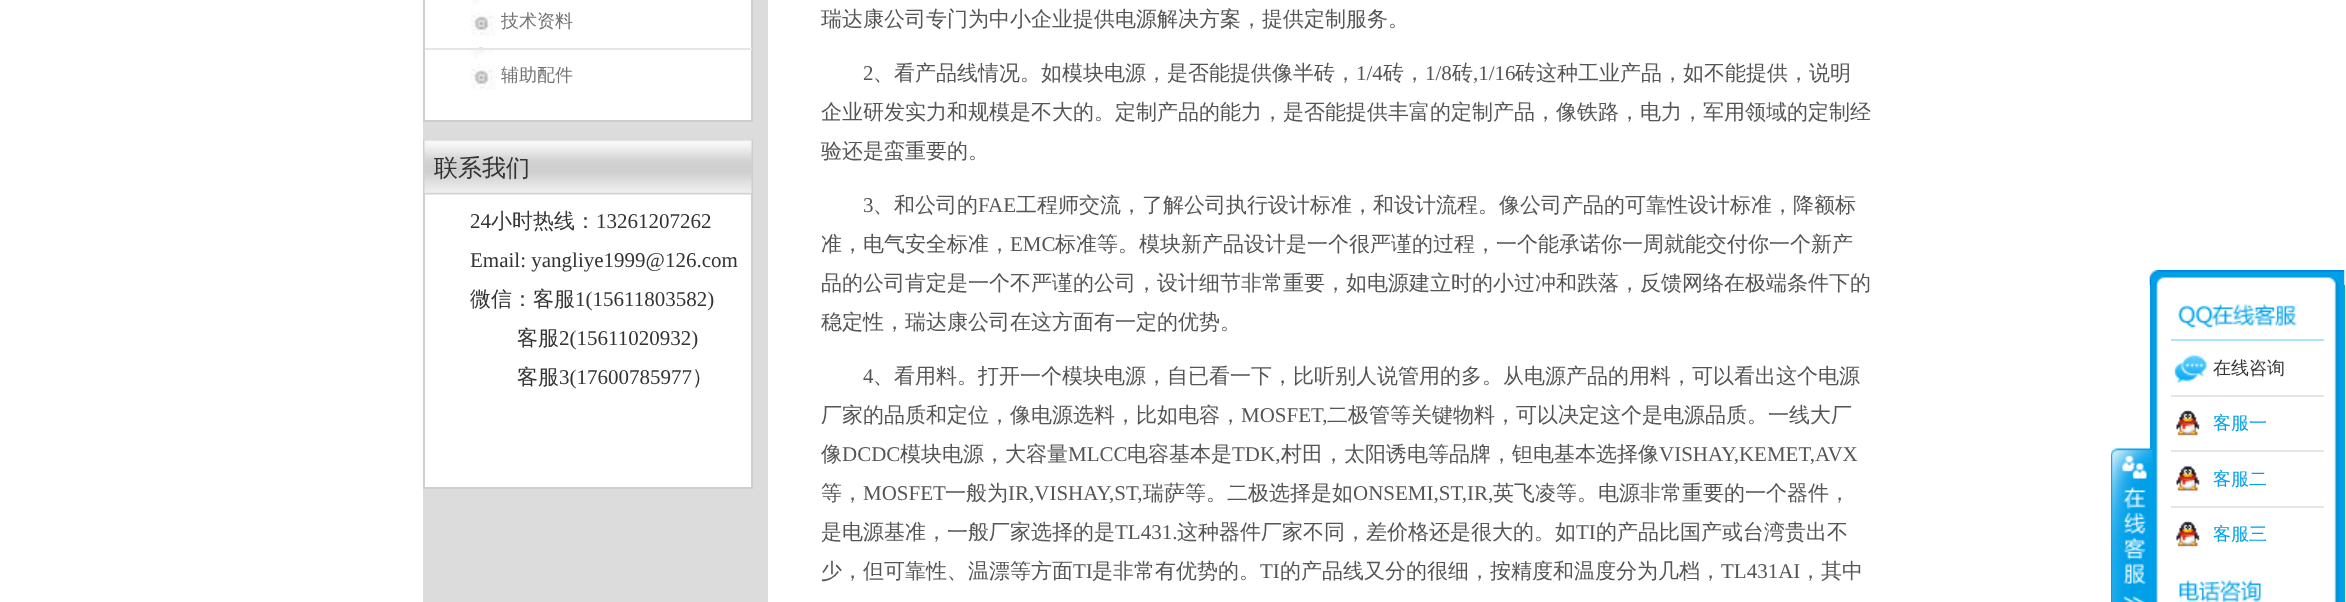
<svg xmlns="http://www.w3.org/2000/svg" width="2346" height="602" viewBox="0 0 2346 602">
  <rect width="100%" height="100%" fill="#ffffff"/>
  <rect x="423" y="0" width="345" height="602" fill="#dcdcdc"/>
  <rect x="424" y="-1" width="328" height="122" fill="#ffffff" stroke="#cecece" stroke-width="2"/>
  <image x="470" y="0" width="26" height="36" href="img1.png"/>
  <text x="501" y="27" font-family="WenQuanYi Zen Hei" font-size="18" font-weight="500" fill="#737373">技术资料</text>
  <image x="470" y="47" width="26" height="43" href="img2.png"/>
  <rect x="425" y="48" width="327" height="2" fill="#e6e6e6"/>
  <text x="501" y="81" font-family="WenQuanYi Zen Hei" font-size="18" font-weight="500" fill="#737373">辅助配件</text>
  <rect x="425" y="194" width="326" height="293" fill="#ffffff"/>
  <rect x="424" y="141" width="328" height="347" fill="none" stroke="#cecece" stroke-width="2"/>
  <image x="424" y="140" width="328" height="55" href="img3.png"/>
  <text x="434" y="176" font-family="WenQuanYi Zen Hei" font-size="24" font-weight="500" fill="#333333">联系我们</text>
  <text x="470" y="228" font-family="Liberation Serif" font-size="21" fill="#333333">24</text>
  <text x="491" y="228" font-family="WenQuanYi Zen Hei" font-size="21" font-weight="500" fill="#333333">小时热线：</text>
  <text x="596" y="228" font-family="Liberation Serif" font-size="21" fill="#333333">13261207262</text>
  <text x="470" y="267" font-family="Liberation Serif" font-size="21" fill="#333333">Email: yangliye1999@126.com</text>
  <text x="470" y="306" font-family="WenQuanYi Zen Hei" font-size="21" font-weight="500" fill="#333333">微信：客服</text>
  <text x="575" y="306" font-family="Liberation Serif" font-size="21" fill="#333333">1(15611803582)</text>
  <text x="517" y="345" font-family="WenQuanYi Zen Hei" font-size="21" font-weight="500" fill="#333333">客服</text>
  <text x="559" y="345" font-family="Liberation Serif" font-size="21" fill="#333333">2(15611020932)</text>
  <text x="517" y="384" font-family="WenQuanYi Zen Hei" font-size="21" font-weight="500" fill="#333333">客服</text>
  <text x="559" y="384" font-family="Liberation Serif" font-size="21" fill="#333333">3(17600785977</text>
  <text x="692" y="384" font-family="WenQuanYi Zen Hei" font-size="21" font-weight="500" fill="#333333">）</text>
  <text x="821" y="26" font-family="WenQuanYi Zen Hei" font-size="21" font-weight="500" fill="#555555">瑞达康公司专门为中小企业提供电源解决方案，提供定制服务。</text>
  <text x="863" y="80" font-family="Liberation Serif" font-size="21" fill="#555555">2</text>
  <text x="873" y="80" font-family="WenQuanYi Zen Hei" font-size="21" font-weight="500" fill="#555555">、看产品线情况。如模块电源，是否能提供像半砖，</text>
  <text x="1356" y="80" font-family="Liberation Serif" font-size="21" fill="#555555">1/4</text>
  <text x="1383" y="80" font-family="WenQuanYi Zen Hei" font-size="21" font-weight="500" fill="#555555">砖，</text>
  <text x="1425" y="80" font-family="Liberation Serif" font-size="21" fill="#555555">1/8</text>
  <text x="1452" y="80" font-family="WenQuanYi Zen Hei" font-size="21" font-weight="500" fill="#555555">砖</text>
  <text x="1473" y="80" font-family="Liberation Serif" font-size="21" fill="#555555">,1/16</text>
  <text x="1515" y="80" font-family="WenQuanYi Zen Hei" font-size="21" font-weight="500" fill="#555555">砖这种工业产品，如不能提供，说明</text>
  <text x="821" y="119" font-family="WenQuanYi Zen Hei" font-size="21" font-weight="500" fill="#555555">企业研发实力和规模是不大的。定制产品的能力，是否能提供丰富的定制产品，像铁路，电力，军用领域的定制经</text>
  <text x="821" y="158" font-family="WenQuanYi Zen Hei" font-size="21" font-weight="500" fill="#555555">验还是蛮重要的。</text>
  <text x="863" y="212" font-family="Liberation Serif" font-size="21" fill="#555555">3</text>
  <text x="873" y="212" font-family="WenQuanYi Zen Hei" font-size="21" font-weight="500" fill="#555555">、和公司的</text>
  <text x="978" y="212" font-family="Liberation Serif" font-size="21" fill="#555555">FAE</text>
  <text x="1016" y="212" font-family="WenQuanYi Zen Hei" font-size="21" font-weight="500" fill="#555555">工程师交流，了解公司执行设计标准，和设计流程。像公司产品的可靠性设计标准，降额标</text>
  <text x="821" y="251" font-family="WenQuanYi Zen Hei" font-size="21" font-weight="500" fill="#555555">准，电气安全标准，</text>
  <text x="1010" y="251" font-family="Liberation Serif" font-size="21" fill="#555555">EMC</text>
  <text x="1055" y="251" font-family="WenQuanYi Zen Hei" font-size="21" font-weight="500" fill="#555555">标准等。模块新产品设计是一个很严谨的过程，一个能承诺你一周就能交付你一个新产</text>
  <text x="821" y="290" font-family="WenQuanYi Zen Hei" font-size="21" font-weight="500" fill="#555555">品的公司肯定是一个不严谨的公司，设计细节非常重要，如电源建立时的小过冲和跌落，反馈网络在极端条件下的</text>
  <text x="821" y="329" font-family="WenQuanYi Zen Hei" font-size="21" font-weight="500" fill="#555555">稳定性，瑞达康公司在这方面有一定的优势。</text>
  <text x="863" y="383" font-family="Liberation Serif" font-size="21" fill="#555555">4</text>
  <text x="873" y="383" font-family="WenQuanYi Zen Hei" font-size="21" font-weight="500" fill="#555555">、看用料。打开一个模块电源，自已看一下，比听别人说管用的多。从电源产品的用料，可以看出这个电源</text>
  <text x="821" y="422" font-family="WenQuanYi Zen Hei" font-size="21" font-weight="500" fill="#555555">厂家的品质和定位，像电源选料，比如电容，</text>
  <text x="1241" y="422" font-family="Liberation Serif" font-size="21" fill="#555555">MOSFET,</text>
  <text x="1327" y="422" font-family="WenQuanYi Zen Hei" font-size="21" font-weight="500" fill="#555555">二极管等关键物料，可以决定这个是电源品质。一线大厂</text>
  <text x="821" y="461" font-family="WenQuanYi Zen Hei" font-size="21" font-weight="500" fill="#555555">像</text>
  <text x="842" y="461" font-family="Liberation Serif" font-size="21" fill="#555555">DCDC</text>
  <text x="900" y="461" font-family="WenQuanYi Zen Hei" font-size="21" font-weight="500" fill="#555555">模块电源，大容量</text>
  <text x="1068" y="461" font-family="Liberation Serif" font-size="21" fill="#555555">MLCC</text>
  <text x="1127" y="461" font-family="WenQuanYi Zen Hei" font-size="21" font-weight="500" fill="#555555">电容基本是</text>
  <text x="1232" y="461" font-family="Liberation Serif" font-size="21" fill="#555555">TDK,</text>
  <text x="1281" y="461" font-family="WenQuanYi Zen Hei" font-size="21" font-weight="500" fill="#555555">村田，太阳诱电等品牌，钽电基本选择像</text>
  <text x="1659" y="461" font-family="Liberation Serif" font-size="21" fill="#555555">VISHAY,KEMET,AVX</text>
  <text x="821" y="500" font-family="WenQuanYi Zen Hei" font-size="21" font-weight="500" fill="#555555">等，</text>
  <text x="863" y="500" font-family="Liberation Serif" font-size="21" fill="#555555">MOSFET</text>
  <text x="945" y="500" font-family="WenQuanYi Zen Hei" font-size="21" font-weight="500" fill="#555555">一般为</text>
  <text x="1008" y="500" font-family="Liberation Serif" font-size="21" fill="#555555">IR,VISHAY,ST,</text>
  <text x="1143" y="500" font-family="WenQuanYi Zen Hei" font-size="21" font-weight="500" fill="#555555">瑞萨等。二极选择是如</text>
  <text x="1353" y="500" font-family="Liberation Serif" font-size="21" fill="#555555">ONSEMI,ST,IR,</text>
  <text x="1493" y="500" font-family="WenQuanYi Zen Hei" font-size="21" font-weight="500" fill="#555555">英飞凌等。电源非常重要的一个器件，</text>
  <text x="821" y="539" font-family="WenQuanYi Zen Hei" font-size="21" font-weight="500" fill="#555555">是电源基准，一般厂家选择的是</text>
  <text x="1115" y="539" font-family="Liberation Serif" font-size="21" fill="#555555">TL431.</text>
  <text x="1177" y="539" font-family="WenQuanYi Zen Hei" font-size="21" font-weight="500" fill="#555555">这种器件厂家不同，差价格还是很大的。如</text>
  <text x="1576" y="539" font-family="Liberation Serif" font-size="21" fill="#555555">TI</text>
  <text x="1596" y="539" font-family="WenQuanYi Zen Hei" font-size="21" font-weight="500" fill="#555555">的产品比国产或台湾贵出不</text>
  <text x="821" y="578" font-family="WenQuanYi Zen Hei" font-size="21" font-weight="500" fill="#555555">少，但可靠性、温漂等方面</text>
  <text x="1073" y="578" font-family="Liberation Serif" font-size="21" fill="#555555">TI</text>
  <text x="1092" y="578" font-family="WenQuanYi Zen Hei" font-size="21" font-weight="500" fill="#555555">是非常有优势的。</text>
  <text x="1260" y="578" font-family="Liberation Serif" font-size="21" fill="#555555">TI</text>
  <text x="1280" y="578" font-family="WenQuanYi Zen Hei" font-size="21" font-weight="500" fill="#555555">的产品线又分的很细，按精度和温度分为几档，</text>
  <text x="1721" y="578" font-family="Liberation Serif" font-size="21" fill="#555555">TL431AI</text>
  <text x="1800" y="578" font-family="WenQuanYi Zen Hei" font-size="21" font-weight="500" fill="#555555">，其中</text>
  <image x="2150" y="285" width="195" height="317" href="img6.png"/>
  <image x="2111" y="448" width="42" height="154" href="img4.png"/>
  <image x="2149" y="270" width="196" height="15" href="img5.png"/>
  <rect x="2171" y="339" width="153" height="2" fill="#ace5f9"/>
  <image x="2178" y="304" width="119" height="24" href="img7.png"/>
  <rect x="2171" y="395" width="153" height="2" fill="#e6e5e4"/>
  <image x="2174" y="355" width="33" height="28" href="img8.png"/>
  <text x="2213" y="374" font-family="WenQuanYi Zen Hei" font-size="18" font-weight="500" fill="#333333">在线咨询</text>
  <rect x="2171" y="450" width="153" height="2" fill="#e6e5e4"/>
  <image x="2176" y="410" width="24" height="26" href="img9.png"/>
  <text x="2213" y="429" font-family="WenQuanYi Zen Hei" font-size="18" font-weight="500" fill="#00a0e9">客服一</text>
  <rect x="2171" y="506" width="153" height="2" fill="#e6e5e4"/>
  <image x="2176" y="466" width="24" height="25" href="img10.png"/>
  <text x="2213" y="485" font-family="WenQuanYi Zen Hei" font-size="18" font-weight="500" fill="#00a0e9">客服二</text>
  <image x="2176" y="521" width="24" height="26" href="img9.png"/>
  <text x="2213" y="540" font-family="WenQuanYi Zen Hei" font-size="18" font-weight="500" fill="#00a0e9">客服三</text>
  <image x="2179" y="580" width="83" height="22" href="img11.png"/>
</svg>
